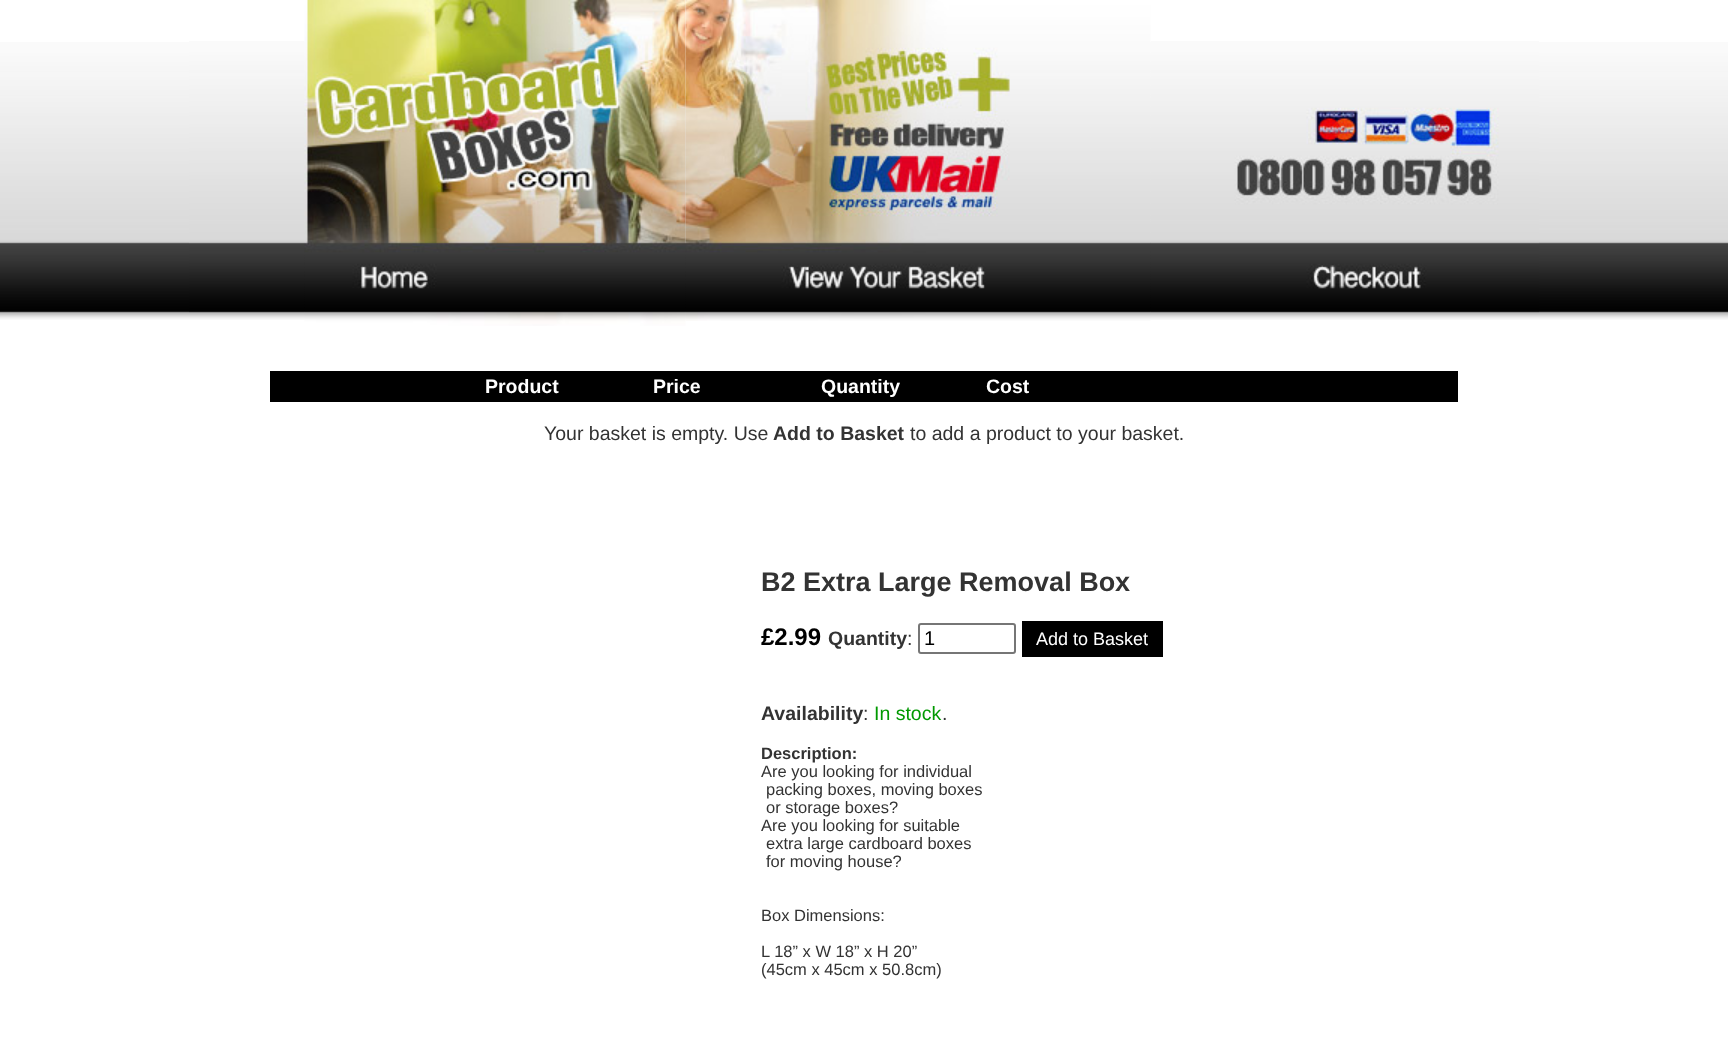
<svg xmlns="http://www.w3.org/2000/svg" width="1728" height="1038" viewBox="0 0 1728 1038">
  <rect width="100%" height="100%" fill="#ffffff"/>
  <image x="0" y="42" width="1728" height="278" href="img1.png"/>
  <image x="189" y="41" width="116" height="272" href="img2.png"/>
  <image x="304" y="0" width="382" height="326" href="img3.png"/>
  <image x="685" y="0" width="466" height="321" href="img4.png"/>
  <image x="1151" y="41" width="388" height="272" href="img5.png"/>
  <rect x="270" y="371" width="1188" height="31" fill="#000000"/>
  <text x="485" y="393" font-family="Liberation Sans" font-size="19.5" font-weight="bold" fill="#ffffff">Product</text>
  <text x="653" y="393" font-family="Liberation Sans" font-size="19.5" font-weight="bold" fill="#ffffff">Price</text>
  <text x="821" y="393" font-family="Liberation Sans" font-size="19.5" font-weight="bold" fill="#ffffff">Quantity</text>
  <text x="986" y="393" font-family="Liberation Sans" font-size="19.5" font-weight="bold" fill="#ffffff">Cost</text>
  <text x="544" y="440" font-family="Liberation Sans" font-size="19.5" fill="#333333">Your basket is empty. Use</text>
  <text x="773" y="440" font-family="Liberation Sans" font-size="19.5" font-weight="bold" fill="#333333">Add to Basket</text>
  <text x="910" y="440" font-family="Liberation Sans" font-size="19.5" fill="#333333">to add a product to your basket.</text>
  <text x="761" y="591" font-family="Liberation Sans" font-size="27" font-weight="bold" fill="#333333">B2 Extra Large Removal Box</text>
  <text x="761" y="645" font-family="Liberation Sans" font-size="24" font-weight="bold" fill="#000000">£2.99</text>
  <text x="828" y="645" font-family="Liberation Sans" font-size="19.5" font-weight="bold" fill="#333333">Quantity</text>
  <text x="907" y="645" font-family="Liberation Sans" font-size="19.5" fill="#333333">:</text>
  <rect x="919" y="624" width="96" height="29" rx="2" fill="none" stroke="#767676" stroke-width="2"/>
  <text x="924" y="645" font-family="Liberation Sans" font-size="20" fill="#000000">1</text>
  <rect x="1022" y="621" width="141" height="36" fill="#000000"/>
  <text x="1036" y="645" font-family="Liberation Sans" font-size="18" fill="#ffffff">Add to Basket</text>
  <text x="761" y="720" font-family="Liberation Sans" font-size="19.5" font-weight="bold" fill="#333333">Availability</text>
  <text x="863" y="720" font-family="Liberation Sans" font-size="19.5" fill="#333333">:</text>
  <text x="874" y="720" font-family="Liberation Sans" font-size="19.5" fill="#009900">In stock</text>
  <text x="942" y="720" font-family="Liberation Sans" font-size="19.5" fill="#333333">.</text>
  <text x="761" y="759" font-family="Liberation Sans" font-size="16.5" font-weight="bold" fill="#333333">Description:</text>
  <text x="761" y="777" font-family="Liberation Sans" font-size="16.5" fill="#333333">Are you looking for individual</text>
  <text x="766" y="795" font-family="Liberation Sans" font-size="16.5" fill="#333333">packing boxes, moving boxes</text>
  <text x="766" y="813" font-family="Liberation Sans" font-size="16.5" fill="#333333">or storage boxes?</text>
  <text x="761" y="831" font-family="Liberation Sans" font-size="16.5" fill="#333333">Are you looking for suitable</text>
  <text x="766" y="849" font-family="Liberation Sans" font-size="16.5" fill="#333333">extra large cardboard boxes</text>
  <text x="766" y="867" font-family="Liberation Sans" font-size="16.5" fill="#333333">for moving house?</text>
  <text x="761" y="921" font-family="Liberation Sans" font-size="16.5" fill="#333333">Box Dimensions:</text>
  <text x="761" y="957" font-family="Liberation Sans" font-size="16.5" fill="#333333">L 18” x W 18” x H 20”</text>
  <text x="761" y="975" font-family="Liberation Sans" font-size="16.5" fill="#333333">(45cm x 45cm x 50.8cm)</text>
</svg>
